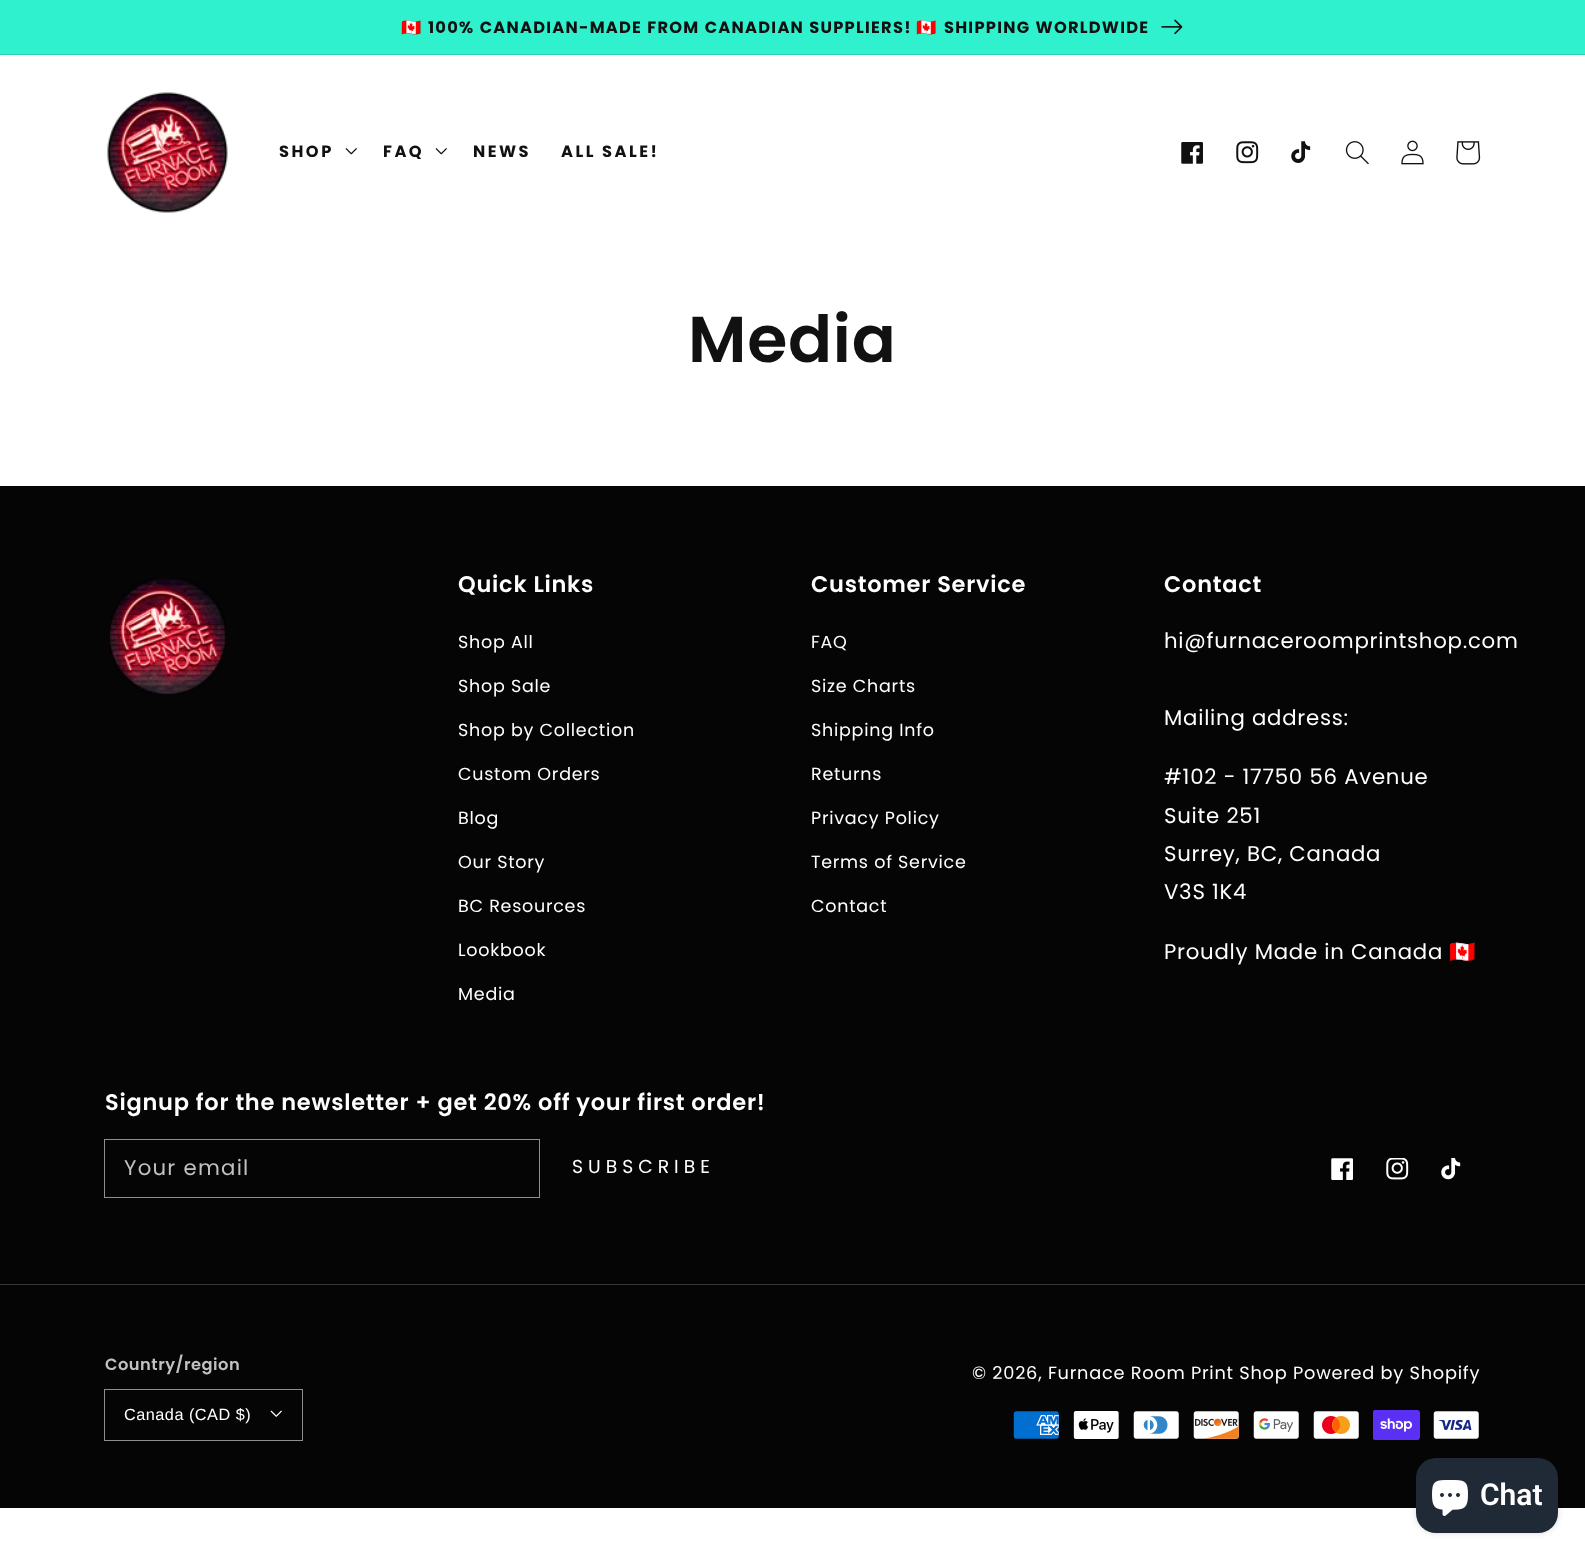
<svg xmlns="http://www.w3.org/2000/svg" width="1585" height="1558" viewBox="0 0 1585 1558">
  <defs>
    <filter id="blur1" x="-50%" y="-200%" width="200%" height="500%"><feGaussianBlur stdDeviation="3"/></filter>
  </defs>
  <rect width="100%" height="100%" fill="#ffffff"/>
  <rect x="0" y="54" width="1585" height="1" fill="#2bcfb2"/>
  <rect x="0" y="0" width="1585" height="54" fill="#30f1ce"/>
  <text x="401" y="33" font-family="Noto Color Emoji" font-size="16.25" font-weight="bold" letter-spacing="1.25" fill="#111111">🇨🇦</text>
  <text x="428" y="33" word-spacing="0.5" font-family="Poppins" font-size="16.25" font-weight="bold" letter-spacing="1.25" fill="#111111">100% CANADIAN-MADE FROM CANADIAN SUPPLIERS!</text>
  <text x="916" y="33" font-family="Noto Color Emoji" font-size="16.25" font-weight="bold" letter-spacing="1.25" fill="#111111">🇨🇦</text>
  <text x="944" y="33" word-spacing="0.5" font-family="Poppins" font-size="16.25" font-weight="bold" letter-spacing="1.25" fill="#111111">SHIPPING WORLDWIDE</text>
  <image x="1161" y="19" width="22" height="16" href="img1.png"/>
  <image x="107" y="92" width="121" height="121" href="img2.png"/>
  <text x="279" y="157" font-family="Poppins" font-size="16.25" font-weight="bold" letter-spacing="2.5" fill="#111111">SHOP</text>
  <image x="345" y="148" width="12" height="7" href="img3.png"/>
  <text x="383" y="157" font-family="Poppins" font-size="16.25" font-weight="bold" letter-spacing="2.5" fill="#111111">FAQ</text>
  <image x="435" y="148" width="12" height="7" href="img3.png"/>
  <text x="473" y="157" font-family="Poppins" font-size="16.25" font-weight="bold" letter-spacing="2.5" fill="#111111">NEWS</text>
  <text x="561" y="157" font-family="Poppins" font-size="16.25" font-weight="bold" letter-spacing="2.5" fill="#111111">ALL SALE!</text>
  <image x="1181" y="142" width="22" height="22" href="img4.png"/>
  <image x="1236" y="141" width="23" height="23" href="img5.png"/>
  <image x="1291" y="141" width="20" height="22" href="img6.png"/>
  <image x="1345" y="141" width="24" height="24" href="img7.png"/>
  <image x="1401" y="140" width="23" height="25" href="img8.png"/>
  <image x="1456" y="141" width="25" height="24" href="img9.png"/>
  <text x="688" y="362" font-family="Poppins" font-size="65" font-weight="600" letter-spacing="0.75" fill="#111111">Media</text>
  <rect x="0" y="486" width="1585" height="1022" fill="#050505"/>
  <image x="109" y="578" width="117" height="117" href="img10.png"/>
  <text x="458" y="592" font-family="Poppins" font-size="22.5" font-weight="600" letter-spacing="0.75" fill="#ffffff">Quick Links</text>
  <text x="458" y="648" font-family="Poppins" font-size="17.5" letter-spacing="0.75" fill="#ffffff">Shop All</text>
  <text x="458" y="692" font-family="Poppins" font-size="17.5" letter-spacing="0.75" fill="#ffffff">Shop Sale</text>
  <text x="458" y="736" font-family="Poppins" font-size="17.5" letter-spacing="0.75" fill="#ffffff">Shop by Collection</text>
  <text x="458" y="780" font-family="Poppins" font-size="17.5" letter-spacing="0.75" fill="#ffffff">Custom Orders</text>
  <text x="458" y="824" font-family="Poppins" font-size="17.5" letter-spacing="0.75" fill="#ffffff">Blog</text>
  <text x="458" y="868" font-family="Poppins" font-size="17.5" letter-spacing="0.75" fill="#ffffff">Our Story</text>
  <text x="458" y="912" font-family="Poppins" font-size="17.5" letter-spacing="0.75" fill="#ffffff">BC Resources</text>
  <text x="458" y="956" font-family="Poppins" font-size="17.5" letter-spacing="0.75" fill="#ffffff">Lookbook</text>
  <text x="458" y="1000" font-family="Poppins" font-size="17.5" letter-spacing="0.75" fill="#ffffff">Media</text>
  <text x="811" y="592" font-family="Poppins" font-size="22.5" font-weight="600" letter-spacing="0.75" fill="#ffffff">Customer Service</text>
  <text x="811" y="648" font-family="Poppins" font-size="17.5" letter-spacing="0.75" fill="#ffffff">FAQ</text>
  <text x="811" y="692" font-family="Poppins" font-size="17.5" letter-spacing="0.75" fill="#ffffff">Size Charts</text>
  <text x="811" y="736" font-family="Poppins" font-size="17.5" letter-spacing="0.75" fill="#ffffff">Shipping Info</text>
  <text x="811" y="780" font-family="Poppins" font-size="17.5" letter-spacing="0.75" fill="#ffffff">Returns</text>
  <text x="811" y="824" font-family="Poppins" font-size="17.5" letter-spacing="0.75" fill="#ffffff">Privacy Policy</text>
  <text x="811" y="868" font-family="Poppins" font-size="17.5" letter-spacing="0.75" fill="#ffffff">Terms of Service</text>
  <text x="811" y="912" font-family="Poppins" font-size="17.5" letter-spacing="0.75" fill="#ffffff">Contact</text>
  <text x="1164" y="592" font-family="Poppins" font-size="22.5" font-weight="600" letter-spacing="0.75" fill="#ffffff">Contact</text>
  <text x="1164" y="648" font-family="Poppins" font-size="21.25" letter-spacing="0.75" fill="#ffffff">hi@furnaceroomprintshop.com</text>
  <text x="1164" y="725" font-family="Poppins" font-size="21.25" letter-spacing="0.75" fill="#ffffff">Mailing address:</text>
  <text x="1164" y="784" font-family="Poppins" font-size="21.25" letter-spacing="0.75" fill="#ffffff">#102 - 17750 56 Avenue</text>
  <text x="1164" y="823" font-family="Poppins" font-size="21.25" letter-spacing="0.75" fill="#ffffff">Suite 251</text>
  <text x="1164" y="861" font-family="Poppins" font-size="21.25" letter-spacing="0.75" fill="#ffffff">Surrey, BC, Canada</text>
  <text x="1164" y="899" font-family="Poppins" font-size="21.25" letter-spacing="0.75" fill="#ffffff">V3S 1K4</text>
  <text x="1164" y="959" font-family="Poppins" font-size="21.25" letter-spacing="0.75" fill="#ffffff">Proudly Made in Canada</text>
  <text x="1449" y="959" font-family="Noto Color Emoji" font-size="21.25" letter-spacing="0.75" fill="#ffffff">🇨🇦</text>
  <text x="105" y="1110" font-family="Poppins" font-size="22.5" font-weight="600" letter-spacing="0.75" fill="#ffffff">Signup for the newsletter + get 20% off your first order!</text>
  <rect x="104.5" y="1139.5" width="435" height="58" fill="none" stroke="#8f8f8f"/>
  <text x="124" y="1175" font-family="Poppins" font-size="21.25" letter-spacing="1.25" fill="#c1c1c1">Your email</text>
  <text x="572" y="1173" font-family="Poppins" font-size="18.75" letter-spacing="5" fill="#ffffff">SUBSCRIBE</text>
  <image x="1331" y="1158" width="22" height="22" href="img11.png"/>
  <image x="1386" y="1158" width="23" height="22" href="img12.png"/>
  <image x="1441" y="1158" width="20" height="22" href="img13.png"/>
  <rect x="0" y="1284" width="1585" height="1" fill="#373737"/>
  <text x="105" y="1370" font-family="Poppins" font-size="16.25" font-weight="600" letter-spacing="0.5" fill="#c1c1c1">Country/region</text>
  <rect x="104.5" y="1389.5" width="198" height="51" fill="none" stroke="#8f8f8f"/>
  <text x="124" y="1420" font-family="Liberation Sans" font-size="16.25" letter-spacing="0.5" fill="#ffffff">Canada (CAD $)</text>
  <image x="270" y="1410" width="12" height="7" href="img14.png"/>
  <text x="972" y="1379" font-family="Poppins" font-size="17.75" letter-spacing="0.75" fill="#ffffff">© 2026, Furnace Room Print Shop</text>
  <text x="1293" y="1379" font-family="Poppins" font-size="17.75" letter-spacing="0.75" fill="#ffffff">Powered by Shopify</text>
  <image x="1013" y="1411" width="46" height="28" href="img15.png"/>
  <image x="1073" y="1410" width="46" height="30" href="img16.png"/>
  <image x="1133" y="1411" width="46" height="28" href="img17.png"/>
  <image x="1193" y="1411" width="46" height="28" href="img18.png"/>
  <image x="1253" y="1411" width="46" height="28" href="img19.png"/>
  <image x="1313" y="1411" width="46" height="28" href="img20.png"/>
  <image x="1373" y="1410" width="47" height="30" href="img21.png"/>
  <image x="1433" y="1411" width="46" height="28" href="img22.png"/>
  <rect x="1416" y="1458" width="142" height="75" rx="20" fill="#000000" fill-opacity="0.15" filter="url(#blur1)"/>
  <rect x="1416" y="1458" width="142" height="75" rx="20" fill="#202a36"/>
  <image x="1432" y="1480" width="36" height="36" href="img23.png"/>
  <text x="1480" y="1505" font-family="Roboto" font-size="30" font-weight="600" fill="#ffffff">Chat</text>
</svg>
